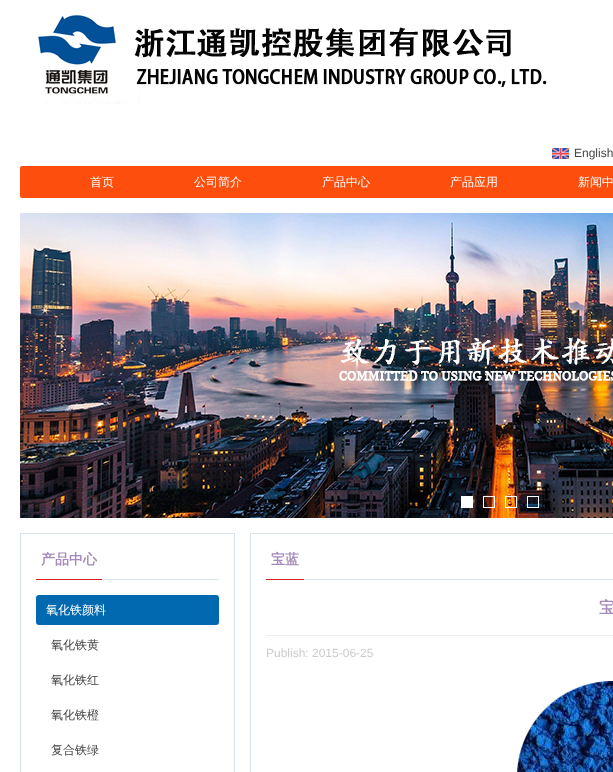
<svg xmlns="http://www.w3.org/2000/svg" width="613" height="772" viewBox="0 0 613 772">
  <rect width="100%" height="100%" fill="#ffffff"/>
  <image x="37" y="15" width="510" height="89" href="img1.png"/>
  <image x="552" y="148" width="17" height="11" href="img2.png"/>
  <text x="574" y="157" font-family="Liberation Sans" font-size="12" fill="#454545">English</text>
  <rect x="20" y="166" width="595" height="32" rx="2" fill="#fd4e0d"/>
  <text x="90" y="186" font-family="WenQuanYi Zen Hei" font-size="12" font-weight="500" fill="#ffffff">首页</text>
  <text x="194" y="186" font-family="WenQuanYi Zen Hei" font-size="12" font-weight="500" fill="#ffffff">公司简介</text>
  <text x="322" y="186" font-family="WenQuanYi Zen Hei" font-size="12" font-weight="500" fill="#ffffff">产品中心</text>
  <text x="450" y="186" font-family="WenQuanYi Zen Hei" font-size="12" font-weight="500" fill="#ffffff">产品应用</text>
  <text x="578" y="186" font-family="WenQuanYi Zen Hei" font-size="12" font-weight="500" fill="#ffffff">新闻中</text>
  <image x="20" y="213" width="593" height="305" href="img3.png"/>
  <rect x="461" y="496" width="12" height="12" fill="#ffffff"/>
  <rect x="483.5" y="496.5" width="11" height="11" fill="none" stroke="#ffffff"/>
  <rect x="505.5" y="496.5" width="11" height="11" fill="none" stroke="#ffffff"/>
  <rect x="527.5" y="496.5" width="11" height="11" fill="none" stroke="#ffffff"/>
  <rect x="20.5" y="533.5" width="214" height="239" fill="none" stroke="#d9e3ea"/>
  <rect x="102" y="579" width="117" height="1" fill="#d9e3ea"/>
  <rect x="36" y="579" width="66" height="1" fill="#d81d18"/>
  <text x="41" y="564" font-family="WenQuanYi Zen Hei" font-size="14" font-weight="bold" fill="#a58abb">产品中心</text>
  <rect x="36" y="595" width="183" height="30" rx="3" fill="#0169af"/>
  <text x="46" y="614" font-family="WenQuanYi Zen Hei" font-size="12" font-weight="500" fill="#ffffff">氧化铁颜料</text>
  <text x="51" y="649" font-family="WenQuanYi Zen Hei" font-size="12" font-weight="500" fill="#454545">氧化铁黄</text>
  <text x="51" y="684" font-family="WenQuanYi Zen Hei" font-size="12" font-weight="500" fill="#454545">氧化铁红</text>
  <text x="51" y="719" font-family="WenQuanYi Zen Hei" font-size="12" font-weight="500" fill="#454545">氧化铁橙</text>
  <text x="51" y="754" font-family="WenQuanYi Zen Hei" font-size="12" font-weight="500" fill="#454545">复合铁绿</text>
  <rect x="250.5" y="533.5" width="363" height="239" fill="none" stroke="#d9e3ea"/>
  <rect x="304" y="579" width="309" height="1" fill="#d9e3ea"/>
  <rect x="266" y="579" width="38" height="1" fill="#d81d18"/>
  <text x="271" y="564" font-family="WenQuanYi Zen Hei" font-size="14" font-weight="bold" fill="#a58abb">宝蓝</text>
  <rect x="266" y="635" width="347" height="1" fill="#eeeeee"/>
  <text x="599" y="613" font-family="WenQuanYi Zen Hei" font-size="16" font-weight="bold" fill="#a58abb">宝</text>
  <text x="266" y="657" font-family="Liberation Sans" font-size="12" fill="#cccccc">Publish: 2015-06-25</text>
  <image x="517" y="681" width="96" height="91" href="img4.png"/>
</svg>
